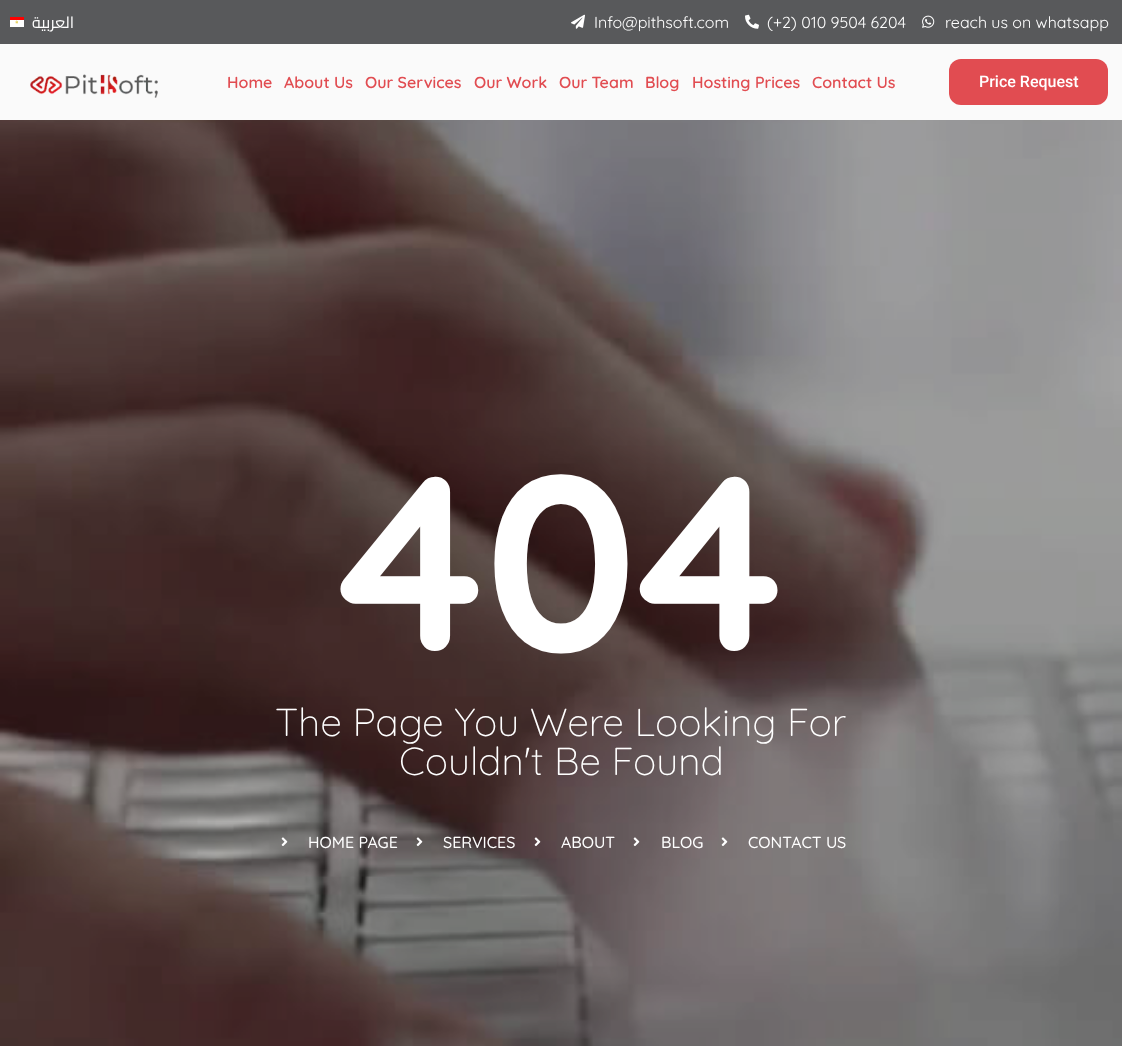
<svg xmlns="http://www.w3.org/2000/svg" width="1122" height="1046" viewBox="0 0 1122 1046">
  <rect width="100%" height="100%" fill="#fafafa"/>
  <rect x="0" y="0" width="1122" height="44" fill="#58595b"/>
  <image x="10" y="17" width="14" height="10" href="img1.png"/>
  <text x="74" y="28" font-family="Cairo" font-size="16" direction="rtl" fill="#ffffff">العربية</text>
  <image x="571" y="14" width="14" height="15" href="img2.png"/>
  <text x="594" y="28" font-family="Quicksand" font-size="16" fill="#ffffff">Info@pithsoft.com</text>
  <image x="745" y="14" width="14" height="15" href="img3.png"/>
  <text x="767" y="28" font-family="Quicksand" font-size="16" fill="#ffffff">(+2) 010 9504 6204</text>
  <image x="922" y="15" width="13" height="13" href="img4.png"/>
  <text x="945" y="28" font-family="Quicksand" font-size="16" fill="#ffffff">reach us on whatsapp</text>
  <image x="30" y="74" width="128" height="24" href="img5.png"/>
  <text x="227" y="88" font-family="Quicksand" font-size="16" font-weight="600" fill="#e14c51">Home</text>
  <text x="284" y="88" font-family="Quicksand" font-size="16" font-weight="600" fill="#e14c51">About Us</text>
  <text x="365" y="88" font-family="Quicksand" font-size="16" font-weight="600" fill="#e14c51">Our Services</text>
  <text x="474" y="88" font-family="Quicksand" font-size="16" font-weight="600" fill="#e14c51">Our Work</text>
  <text x="559" y="88" font-family="Quicksand" font-size="16" font-weight="600" fill="#e14c51">Our Team</text>
  <text x="645" y="88" font-family="Quicksand" font-size="16" font-weight="600" fill="#e14c51">Blog</text>
  <text x="692" y="88" font-family="Quicksand" font-size="16" font-weight="600" fill="#e14c51">Hosting Prices</text>
  <text x="812" y="88" font-family="Quicksand" font-size="16" font-weight="600" fill="#e14c51">Contact Us</text>
  <rect x="949" y="59" width="159" height="46" rx="12" fill="#e14c51"/>
  <text x="979" y="87" font-family="Roboto" font-size="16" font-weight="500" fill="#ffffff">Price Request</text>
  <image x="0" y="120" width="1122" height="926" href="img6.png"/>
  <text x="338" y="651" font-family="Quicksand" font-size="249" font-weight="bold" fill="#ffffff">404</text>
  <text x="275" y="736" font-family="Quicksand" font-size="39" font-weight="300" fill="#ffffff">The Page You Were Looking For</text>
  <text x="399" y="775" font-family="Quicksand" font-size="39" font-weight="300" fill="#ffffff">Couldn't Be Found</text>
  <image x="281" y="837" width="7" height="9" href="img7.png"/>
  <text x="308" y="848" font-family="Quicksand" font-size="16" font-weight="500" fill="#ffffff">HOME PAGE</text>
  <image x="416" y="837" width="7" height="10" href="img8.png"/>
  <text x="443" y="848" font-family="Quicksand" font-size="16" font-weight="500" fill="#ffffff">SERVICES</text>
  <image x="534" y="837" width="7" height="10" href="img9.png"/>
  <text x="561" y="848" font-family="Quicksand" font-size="16" font-weight="500" fill="#ffffff">ABOUT</text>
  <image x="633" y="837" width="7" height="10" href="img10.png"/>
  <text x="661" y="848" font-family="Quicksand" font-size="16" font-weight="500" fill="#ffffff">BLOG</text>
  <image x="721" y="837" width="7" height="9" href="img11.png"/>
  <text x="748" y="848" font-family="Quicksand" font-size="16" font-weight="500" fill="#ffffff">CONTACT US</text>
</svg>
